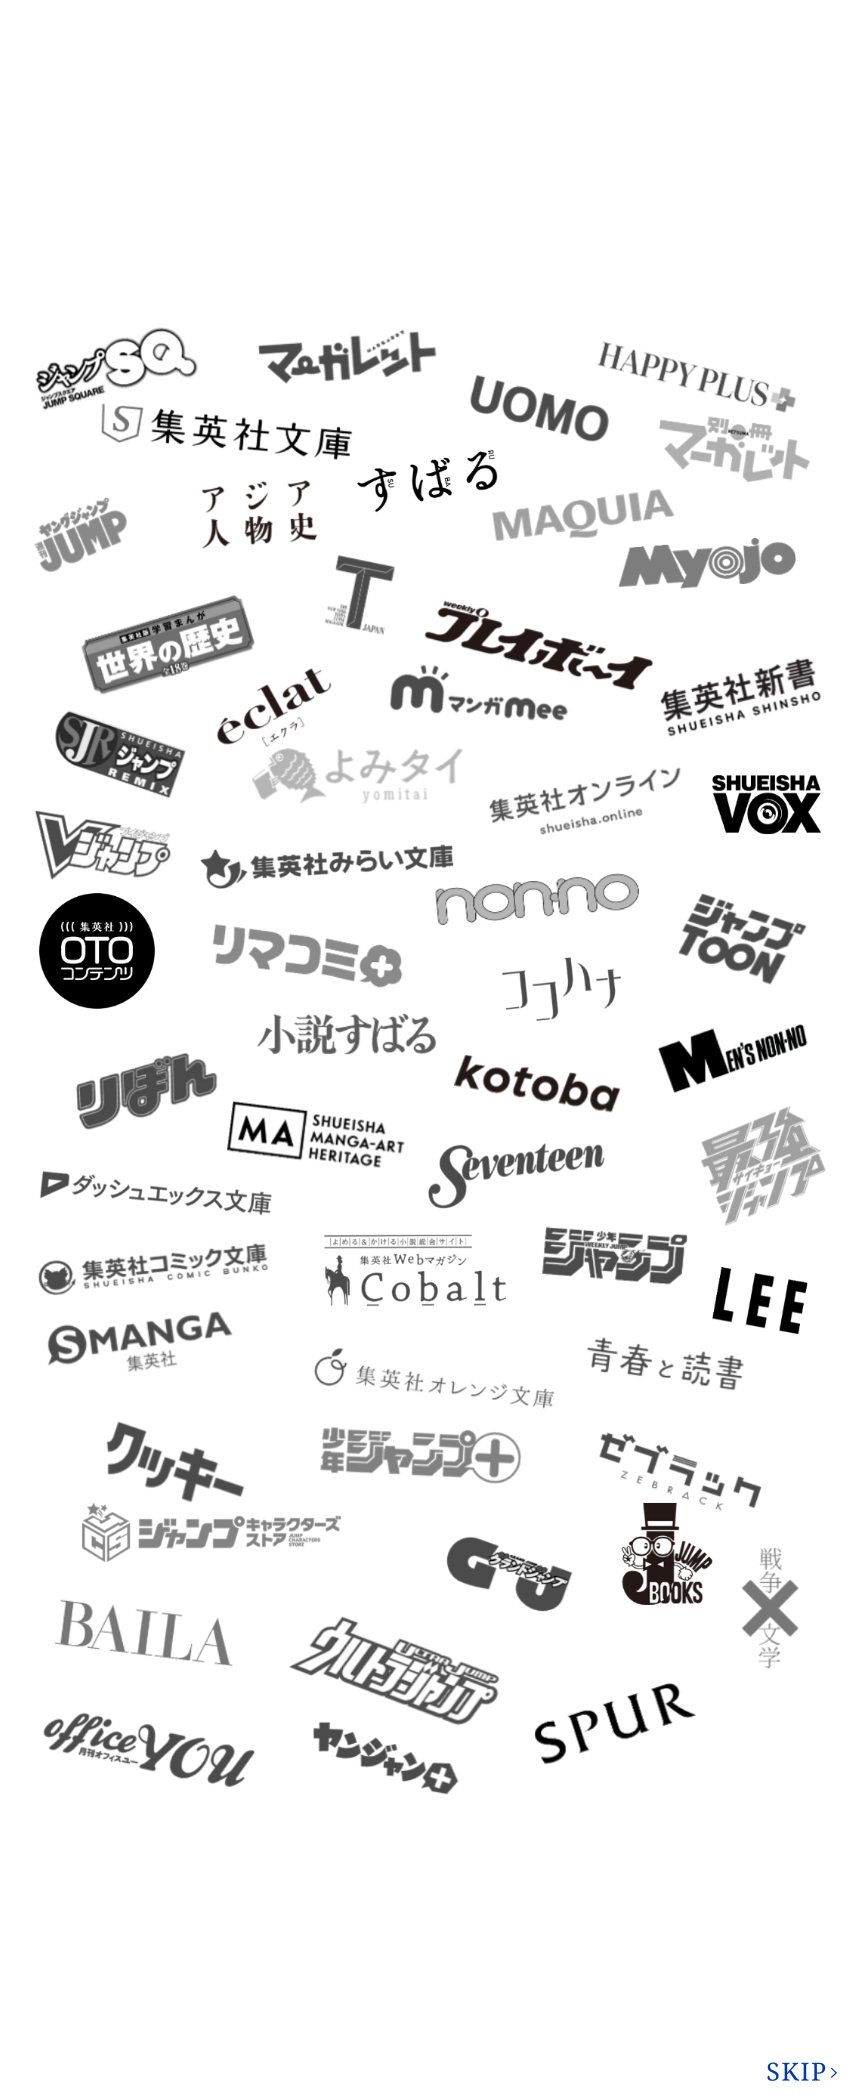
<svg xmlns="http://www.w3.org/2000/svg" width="850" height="2099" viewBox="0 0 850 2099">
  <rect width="100%" height="100%" fill="#ffffff"/>
  <image x="101" y="403" width="252" height="57" href="img5.png"/>
  <image x="35" y="327" width="163" height="85" href="img1.png"/>
  <image x="258" y="329" width="179" height="55" href="img2.png"/>
  <image x="470" y="374" width="140" height="68" href="img3.png"/>
  <image x="596" y="340" width="201" height="73" href="img4.png"/>
  <image x="357" y="449" width="141" height="64" href="img6.png"/>
  <image x="658" y="416" width="152" height="66" href="img7.png"/>
  <image x="34" y="497" width="93" height="76" href="img8.png"/>
  <image x="81" y="594" width="174" height="101" href="img9.png"/>
  <image x="201" y="480" width="117" height="69" href="img10.png"/>
  <image x="324" y="555" width="71" height="80" href="img11.png"/>
  <image x="492" y="489" width="183" height="52" href="img12.png"/>
  <image x="618" y="537" width="178" height="52" href="img13.png"/>
  <image x="424" y="600" width="229" height="91" href="img14.png"/>
  <image x="660" y="658" width="161" height="79" href="img15.png"/>
  <image x="55" y="710" width="132" height="89" href="img16.png"/>
  <image x="216" y="668" width="116" height="79" href="img17.png"/>
  <image x="389" y="664" width="180" height="57" href="img18.png"/>
  <image x="34" y="810" width="138" height="70" href="img19.png"/>
  <image x="252" y="748" width="211" height="56" href="img20.png"/>
  <image x="489" y="767" width="192" height="68" href="img21.png"/>
  <image x="712" y="775" width="109" height="60" href="img22.png"/>
  <image x="200" y="844" width="254" height="46" href="img23.png"/>
  <image x="39" y="893" width="116" height="116" href="img24.png"/>
  <image x="212" y="924" width="191" height="64" href="img25.png"/>
  <image x="435" y="873" width="204" height="52" href="img26.png"/>
  <image x="678" y="893" width="129" height="92" href="img27.png"/>
  <image x="501" y="957" width="121" height="64" href="img28.png"/>
  <image x="75" y="1052" width="143" height="78" href="img29.png"/>
  <image x="257" y="1013" width="180" height="42" href="img30.png"/>
  <image x="454" y="1054" width="167" height="59" href="img31.png"/>
  <image x="658" y="1024" width="150" height="70" href="img32.png"/>
  <image x="39" y="1170" width="233" height="46" href="img33.png"/>
  <image x="227" y="1101" width="178" height="67" href="img34.png"/>
  <image x="428" y="1143" width="177" height="66" href="img35.png"/>
  <image x="700" y="1105" width="126" height="122" href="img36.png"/>
  <image x="38" y="1243" width="230" height="53" href="img37.png"/>
  <image x="324" y="1234" width="183" height="73" href="img38.png"/>
  <image x="542" y="1226" width="146" height="59" href="img39.png"/>
  <image x="712" y="1267" width="96" height="67" href="img40.png"/>
  <image x="47" y="1311" width="186" height="61" href="img41.png"/>
  <image x="313" y="1348" width="241" height="61" href="img42.png"/>
  <image x="587" y="1337" width="157" height="54" href="img43.png"/>
  <image x="106" y="1421" width="139" height="82" href="img44.png"/>
  <image x="320" y="1426" width="202" height="58" href="img45.png"/>
  <image x="599" y="1432" width="163" height="79" href="img46.png"/>
  <image x="82" y="1503" width="259" height="59" href="img47.png"/>
  <image x="446" y="1536" width="127" height="76" href="img48.png"/>
  <image x="621" y="1502" width="92" height="103" href="img49.png"/>
  <image x="741" y="1548" width="58" height="121" href="img50.png"/>
  <image x="55" y="1599" width="178" height="68" href="img51.png"/>
  <image x="312" y="1721" width="147" height="74" href="img55.png"/>
  <image x="288" y="1616" width="212" height="110" href="img52.png"/>
  <image x="534" y="1683" width="162" height="82" href="img53.png"/>
  <image x="43" y="1712" width="213" height="76" href="img54.png"/>
  <image x="767" y="2062" width="70" height="19" href="img56.png"/>
</svg>
